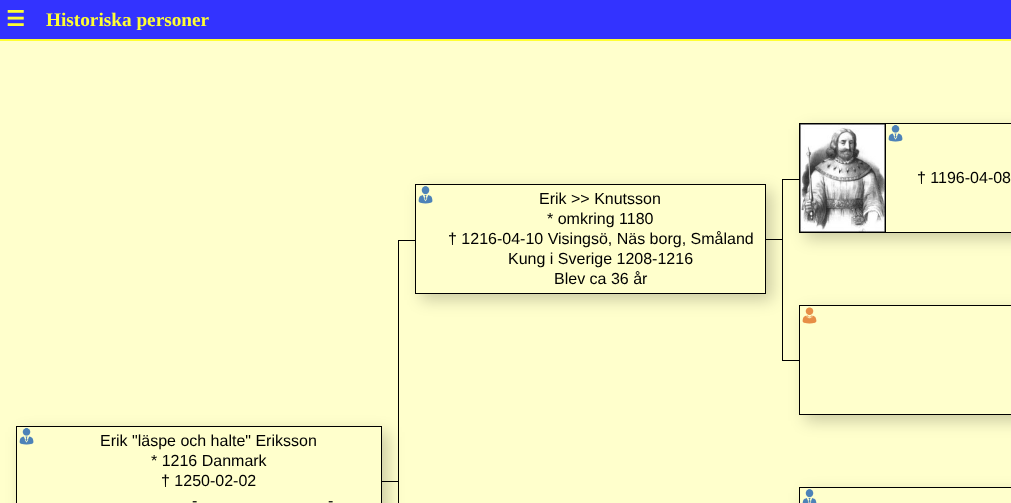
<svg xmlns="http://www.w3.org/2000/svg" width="1011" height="503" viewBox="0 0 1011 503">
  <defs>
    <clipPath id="clip1"><path d="M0 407H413V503H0ZM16 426H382V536H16Z" clip-rule="evenodd"/></clipPath>
    <filter id="blur1" x="-50%" y="-200%" width="200%" height="500%"><feGaussianBlur stdDeviation="8"/></filter>
    <clipPath id="clip2"><path d="M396 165H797V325H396ZM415 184H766V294H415Z" clip-rule="evenodd"/></clipPath>
    <clipPath id="clip3"><path d="M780 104H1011V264H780ZM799 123H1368V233H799Z" clip-rule="evenodd"/></clipPath>
    <clipPath id="clip4"><path d="M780 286H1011V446H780ZM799 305H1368V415H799Z" clip-rule="evenodd"/></clipPath>
    <clipPath id="clip5"><path d="M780 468H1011V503H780ZM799 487H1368V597H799Z" clip-rule="evenodd"/></clipPath>
  </defs>
  <rect width="100%" height="100%" fill="#ffffcc"/>
  <rect x="0" y="0" width="1011" height="39" fill="#3333ff"/>
  <rect x="0" y="39" width="1011" height="2" fill="#ffff33"/>
  <text x="6" y="26" font-family="DejaVu Sans" font-size="21" font-weight="bold" fill="#ffff33">☰</text>
  <text x="46" y="26" font-family="Liberation Serif" font-size="19.25" font-weight="bold" fill="#ffff33">Historiska personer</text>
  <rect x="766" y="239" width="16" height="1" fill="#000000"/>
  <rect x="398" y="240" width="17" height="1" fill="#000000"/>
  <rect x="382" y="481" width="16" height="1" fill="#000000"/>
  <rect x="398" y="420" width="1" height="83" fill="#000000"/>
  <g clip-path="url(#clip1)">
    <rect x="22" y="432" width="366" height="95" fill="#000000" fill-opacity="0.2" filter="url(#blur1)"/>
  </g>
  <rect x="398" y="240" width="1" height="183" fill="#000000"/>
  <rect x="782" y="360" width="17" height="1" fill="#000000"/>
  <rect x="782" y="299" width="1" height="62" fill="#000000"/>
  <g clip-path="url(#clip2)">
    <rect x="421" y="190" width="351" height="110" fill="#000000" fill-opacity="0.2" filter="url(#blur1)"/>
  </g>
  <rect x="415.5" y="184.5" width="350" height="109" fill="none" stroke="#000000"/>
  <image x="418" y="186" width="15" height="18" href="img1.png"/>
  <text x="539" y="204" font-family="Liberation Sans" font-size="16" fill="#000000">Erik &gt;&gt; Knutsson</text>
  <text x="547" y="224" font-family="Liberation Sans" font-size="16" fill="#000000">* omkring 1180</text>
  <text x="448" y="244" font-family="Liberation Sans" font-size="16" fill="#000000">† 1216-04-10 Visingsö, Näs borg, Småland</text>
  <text x="508" y="264" font-family="Liberation Sans" font-size="16" fill="#000000">Kung i Sverige 1208-1216</text>
  <text x="554" y="284" font-family="Liberation Sans" font-size="16" fill="#000000">Blev ca 36 år</text>
  <rect x="782" y="179" width="17" height="1" fill="#000000"/>
  <rect x="782" y="179" width="1" height="122" fill="#000000"/>
  <g clip-path="url(#clip3)">
    <rect x="805" y="129" width="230" height="110" fill="#000000" fill-opacity="0.2" filter="url(#blur1)"/>
  </g>
  <rect x="799.5" y="123.5" width="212" height="109" fill="none" stroke="#000000"/>
  <image x="800" y="124" width="85" height="108" href="img2.png"/>
  <rect x="885" y="124" width="1" height="108" fill="#000000"/>
  <image x="888" y="125" width="15" height="17" href="img3.png"/>
  <text x="917" y="183" font-family="Liberation Sans" font-size="16" fill="#000000">† 1196-04-08</text>
  <g clip-path="url(#clip4)">
    <rect x="805" y="311" width="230" height="110" fill="#000000" fill-opacity="0.2" filter="url(#blur1)"/>
  </g>
  <rect x="799.5" y="305.5" width="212" height="109" fill="none" stroke="#000000"/>
  <image x="802" y="307" width="15" height="17" href="img4.png"/>
  <rect x="16.5" y="426.5" width="365" height="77" fill="none" stroke="#000000"/>
  <image x="19" y="428" width="15" height="17" href="img3.png"/>
  <text x="100" y="446" font-family="Liberation Sans" font-size="16" fill="#000000">Erik "läspe och halte" Eriksson</text>
  <text x="151" y="466" font-family="Liberation Sans" font-size="16" fill="#000000">* 1216 Danmark</text>
  <text x="161" y="486" font-family="Liberation Sans" font-size="16" fill="#000000">† 1250-02-02</text>
  <text x="192" y="506" font-family="Liberation Sans" font-size="16" fill="#000000">-</text>
  <text x="328" y="506" font-family="Liberation Sans" font-size="16" fill="#000000">-</text>
  <g clip-path="url(#clip5)">
    <rect x="805" y="493" width="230" height="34" fill="#000000" fill-opacity="0.2" filter="url(#blur1)"/>
  </g>
  <rect x="799.5" y="487.5" width="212" height="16" fill="none" stroke="#000000"/>
  <image x="802" y="489" width="15" height="14" href="img5.png"/>
</svg>
